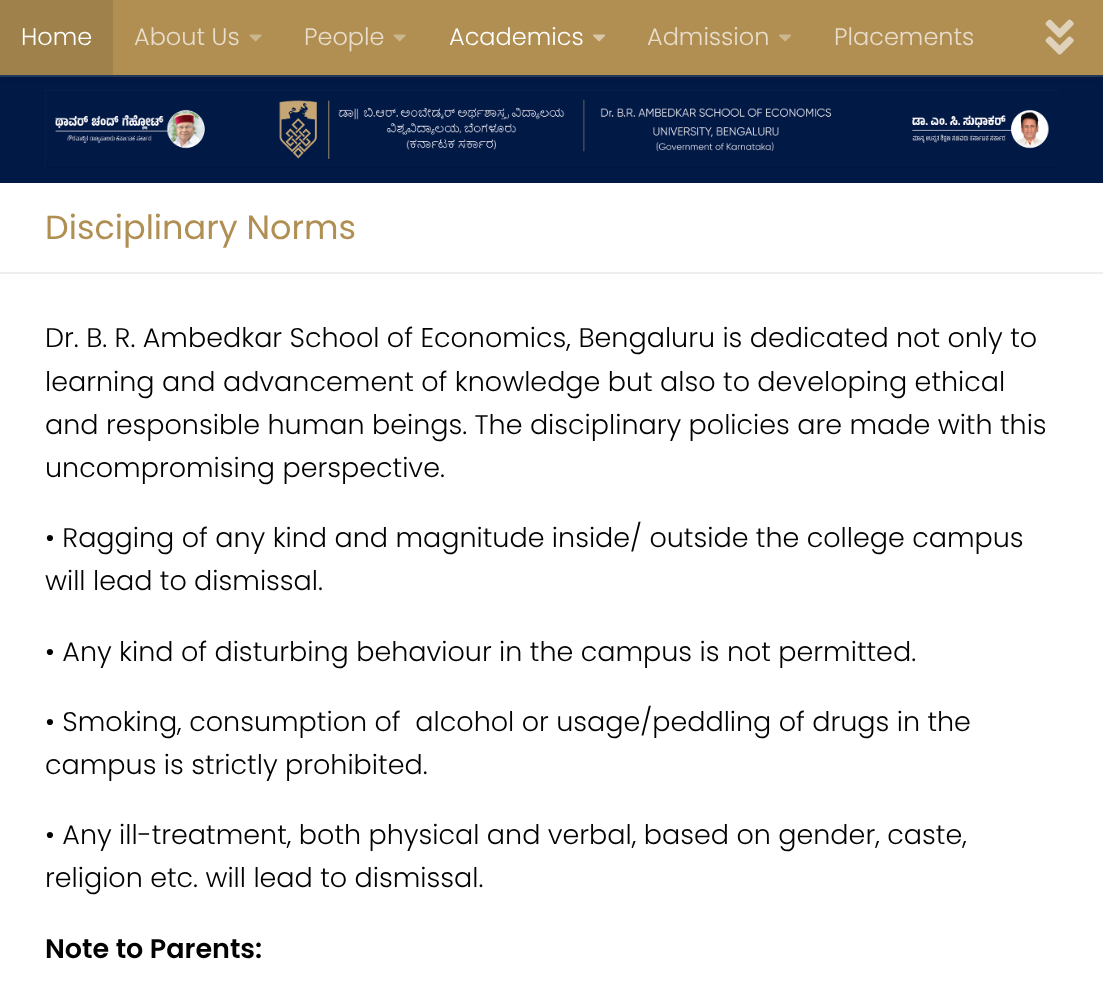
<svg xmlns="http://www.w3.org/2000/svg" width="1103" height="999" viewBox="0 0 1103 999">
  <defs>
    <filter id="blur1" x="-50%" y="-200%" width="200%" height="500%"><feGaussianBlur stdDeviation="4"/></filter>
  </defs>
  <rect width="100%" height="100%" fill="#001945"/>
  <rect x="0" y="75" width="1103" height="2" fill="#263c61"/>
  <rect x="0" y="0" width="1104" height="75" fill="#000000" fill-opacity="0.2" filter="url(#blur1)"/>
  <rect x="113" y="0" width="990" height="75" fill="#b18f53"/>
  <rect x="0" y="0" width="113" height="75" fill="#9f814b"/>
  <text x="21" y="45" font-family="Poppins" font-size="24" font-weight="300" fill="#ffffff">Home</text>
  <text x="134" y="45" font-family="Poppins" font-size="24" font-weight="300" fill="#e8ddcb">About Us</text>
  <image x="249" y="34" width="13" height="8" href="img1.png"/>
  <text x="304" y="45" font-family="Poppins" font-size="24" font-weight="300" fill="#e8ddcb">People</text>
  <image x="393" y="34" width="13" height="8" href="img1.png"/>
  <text x="449" y="45" font-family="Poppins" font-size="24" font-weight="300" fill="#ffffff">Academics</text>
  <image x="593" y="34" width="13" height="8" href="img2.png"/>
  <text x="647" y="45" font-family="Poppins" font-size="24" font-weight="300" fill="#e8ddcb">Admission</text>
  <image x="779" y="34" width="13" height="8" href="img3.png"/>
  <text x="834" y="45" font-family="Poppins" font-size="24" font-weight="300" fill="#e8ddcb">Placements</text>
  <image x="1045" y="19" width="29" height="36" href="img4.png"/>
  <image x="45" y="90" width="1014" height="78" href="img5.png"/>
  <rect x="0" y="183" width="1103" height="816" fill="#ffffff"/>
  <rect x="0" y="272" width="1103" height="2" fill="#eeeeee"/>
  <text x="45" y="239" font-family="Poppins" font-size="33.5" fill="#b18f53">Disciplinary Norms</text>
  <text x="45" y="347" font-family="Poppins" font-size="27" font-weight="300" fill="#010101">Dr. B. R. Ambedkar School of Economics, Bengaluru is dedicated not only to</text>
  <text x="45" y="391" font-family="Poppins" font-size="27" font-weight="300" fill="#010101">learning and advancement of knowledge but also to developing ethical</text>
  <text x="45" y="434" font-family="Poppins" font-size="27" font-weight="300" fill="#010101">and responsible human beings. The disciplinary policies are made with this</text>
  <text x="45" y="477" font-family="Poppins" font-size="27" font-weight="300" fill="#010101">uncompromising perspective.</text>
  <text x="45" y="547" font-family="Poppins" font-size="27" font-weight="300" fill="#010101">• Ragging of any kind and magnitude inside/ outside the college campus</text>
  <text x="45" y="590" font-family="Poppins" font-size="27" font-weight="300" fill="#010101">will lead to dismissal.</text>
  <text x="45" y="661" font-family="Poppins" font-size="27" font-weight="300" fill="#010101">• Any kind of disturbing behaviour in the campus is not permitted.</text>
  <text x="45" y="731" font-family="Poppins" font-size="27" font-weight="300" fill="#010101" xml:space="preserve">• Smoking, consumption of  alcohol or usage/peddling of drugs in the</text>
  <text x="45" y="774" font-family="Poppins" font-size="27" font-weight="300" fill="#010101">campus is strictly prohibited.</text>
  <text x="45" y="844" font-family="Poppins" font-size="27" font-weight="300" fill="#010101">• Any ill-treatment, both physical and verbal, based on gender, caste,</text>
  <text x="45" y="887" font-family="Poppins" font-size="27" font-weight="300" fill="#010101">religion etc. will lead to dismissal.</text>
  <text x="45" y="958" font-family="Poppins" font-size="27" font-weight="600" fill="#010101">Note to Parents:</text>
</svg>
